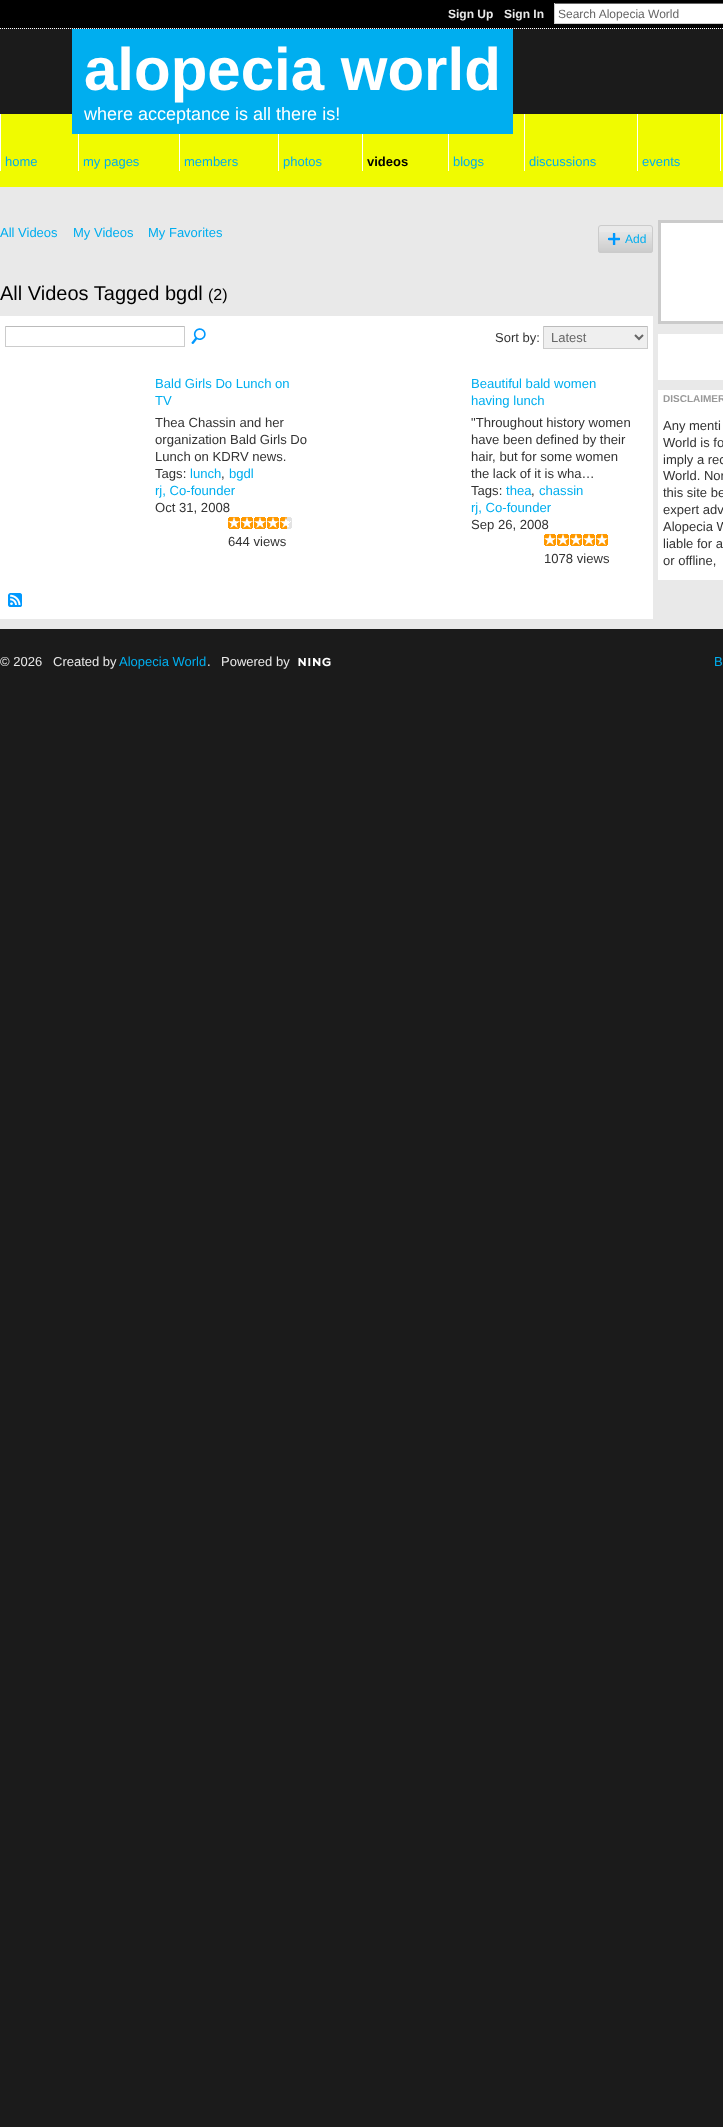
<svg xmlns="http://www.w3.org/2000/svg" width="723" height="2127" viewBox="0 0 723 2127">
  <rect width="100%" height="100%" fill="#1b1b1b"/>
  <rect x="0" y="0" width="723" height="28" fill="#000000"/>
  <text x="448" y="18" font-family="Liberation Sans" font-size="12" font-weight="bold" fill="#e9e9e9">Sign Up</text>
  <text x="504" y="18" font-family="Liberation Sans" font-size="12" font-weight="bold" fill="#e9e9e9">Sign In</text>
  <rect x="555" y="4" width="168" height="19" fill="#ffffff"/>
  <rect x="554" y="3" width="169" height="1" fill="#666666"/>
  <rect x="554" y="23" width="169" height="1" fill="#cccccc"/>
  <rect x="554" y="3" width="1" height="21" fill="#cccccc"/>
  <text x="558" y="18" font-family="Liberation Sans" font-size="12" fill="#666666">Search Alopecia World</text>
  <path d="M0 28.5H723" fill="none" stroke="#ffffff" stroke-dasharray="1 1"/>
  <rect x="0" y="114" width="723" height="73" fill="#f0fb00"/>
  <rect x="72" y="29" width="441" height="105" fill="#00aeef"/>
  <text x="84" y="90" font-family="Liberation Sans" font-size="60" font-weight="bold" fill="#ffffff">alopecia world</text>
  <text x="84" y="120" font-family="Liberation Sans" font-size="18" fill="#ffffff">where acceptance is all there is!</text>
  <rect x="0" y="114" width="1" height="57" fill="#ffffff"/>
  <text x="5" y="166" font-family="Liberation Sans" font-size="13" fill="#00aeef">home</text>
  <rect x="78" y="134" width="1" height="37" fill="#ffffff"/>
  <text x="83" y="166" font-family="Liberation Sans" font-size="13" fill="#00aeef">my pages</text>
  <rect x="179" y="134" width="1" height="37" fill="#ffffff"/>
  <text x="184" y="166" font-family="Liberation Sans" font-size="13" fill="#00aeef">members</text>
  <rect x="278" y="134" width="1" height="37" fill="#ffffff"/>
  <text x="283" y="166" font-family="Liberation Sans" font-size="13" fill="#00aeef">photos</text>
  <rect x="362" y="134" width="1" height="37" fill="#ffffff"/>
  <text x="367" y="166" font-family="Liberation Sans" font-size="13" font-weight="bold" fill="#000000">videos</text>
  <rect x="448" y="134" width="1" height="37" fill="#ffffff"/>
  <text x="453" y="166" font-family="Liberation Sans" font-size="13" fill="#00aeef">blogs</text>
  <rect x="524" y="114" width="1" height="57" fill="#ffffff"/>
  <text x="529" y="166" font-family="Liberation Sans" font-size="13" fill="#00aeef">discussions</text>
  <rect x="637" y="114" width="1" height="57" fill="#ffffff"/>
  <text x="642" y="166" font-family="Liberation Sans" font-size="13" fill="#00aeef">events</text>
  <rect x="720" y="114" width="1" height="57" fill="#ffffff"/>
  <rect x="0" y="187" width="723" height="442" fill="#e9e9e9"/>
  <text x="0" y="237" font-family="Liberation Sans" font-size="13" fill="#00aeef">All Videos</text>
  <text x="73" y="237" font-family="Liberation Sans" font-size="13" fill="#00aeef">My Videos</text>
  <text x="148" y="237" font-family="Liberation Sans" font-size="13" fill="#00aeef">My Favorites</text>
  <image x="598" y="232" width="55" height="21" href="img1.png"/>
  <rect x="598.5" y="225.5" width="54" height="27" rx="2.5" fill="none" stroke="#cbcbcb"/>
  <image x="608" y="233" width="12" height="12" href="img2.png"/>
  <text x="625" y="243" font-family="Liberation Sans" font-size="12" fill="#00aeef">Add</text>
  <text x="0" y="300" font-family="Liberation Sans" font-size="20" fill="#000000">All Videos Tagged bgdl</text>
  <text x="208" y="300" font-family="Liberation Sans" font-size="16" fill="#000000">(2)</text>
  <rect x="0" y="316" width="653" height="303" fill="#ffffff"/>
  <rect x="5" y="326" width="180" height="1" fill="#bbbbbb"/>
  <rect x="184" y="326" width="1" height="21" fill="#cccccc"/>
  <rect x="5" y="346" width="180" height="1" fill="#cccccc"/>
  <rect x="5" y="326" width="1" height="21" fill="#cccccc"/>
  <image x="191" y="328" width="15" height="16" href="img3.png"/>
  <text x="495" y="342" font-family="Liberation Sans" font-size="13" fill="#333333">Sort by:</text>
  <rect x="544" y="327" width="103" height="21" fill="#efefef"/>
  <rect x="543" y="326" width="105" height="1" fill="#bbbbbb"/>
  <rect x="647" y="326" width="1" height="23" fill="#cccccc"/>
  <rect x="543" y="348" width="105" height="1" fill="#cccccc"/>
  <rect x="543" y="326" width="1" height="23" fill="#cccccc"/>
  <path d="M635 335L639 339L643 335" fill="none" stroke="#666666" stroke-width="2"/>
  <text x="551" y="342" font-family="Liberation Sans" font-size="13" fill="#666666">Latest</text>
  <text x="155" y="388" font-family="Liberation Sans" font-size="13.1" fill="#00aeef">Bald Girls Do Lunch on</text>
  <text x="155" y="405" font-family="Liberation Sans" font-size="13.1" fill="#00aeef">TV</text>
  <text x="155" y="427" font-family="Liberation Sans" font-size="13.1" fill="#333333">Thea Chassin and her</text>
  <text x="155" y="444" font-family="Liberation Sans" font-size="13.1" fill="#333333">organization Bald Girls Do</text>
  <text x="155" y="461" font-family="Liberation Sans" font-size="13.1" fill="#333333">Lunch on KDRV news.</text>
  <text x="155" y="478" font-family="Liberation Sans" font-size="13.1" fill="#333333">Tags:</text>
  <text x="190" y="478" font-family="Liberation Sans" font-size="13.1" fill="#00aeef">lunch</text>
  <text x="221" y="478" font-family="Liberation Sans" font-size="13.1" fill="#333333">,</text>
  <text x="229" y="478" font-family="Liberation Sans" font-size="13.1" fill="#00aeef">bgdl</text>
  <text x="155" y="495" font-family="Liberation Sans" font-size="13.1" fill="#00aeef">rj, Co-founder</text>
  <text x="155" y="512" font-family="Liberation Sans" font-size="13.1" fill="#333333">Oct 31, 2008</text>
  <image x="228" y="517" width="64" height="12" href="img4.png"/>
  <text x="228" y="546" font-family="Liberation Sans" font-size="13.1" fill="#333333">644 views</text>
  <text x="471" y="388" font-family="Liberation Sans" font-size="13.1" fill="#00aeef">Beautiful bald women</text>
  <text x="471" y="405" font-family="Liberation Sans" font-size="13.1" fill="#00aeef">having lunch</text>
  <text x="471" y="427" font-family="Liberation Sans" font-size="13.1" fill="#333333">"Throughout history women</text>
  <text x="471" y="444" font-family="Liberation Sans" font-size="13.1" fill="#333333">have been defined by their</text>
  <text x="471" y="461" font-family="Liberation Sans" font-size="13.1" fill="#333333">hair, but for some women</text>
  <text x="471" y="478" font-family="Liberation Sans" font-size="13.1" fill="#333333">the lack of it is wha…</text>
  <text x="471" y="495" font-family="Liberation Sans" font-size="13.1" fill="#333333">Tags:</text>
  <text x="506" y="495" font-family="Liberation Sans" font-size="13.1" fill="#00aeef">thea</text>
  <text x="531" y="495" font-family="Liberation Sans" font-size="13.1" fill="#333333">,</text>
  <text x="539" y="495" font-family="Liberation Sans" font-size="13.1" fill="#00aeef">chassin</text>
  <text x="471" y="512" font-family="Liberation Sans" font-size="13.1" fill="#00aeef">rj, Co-founder</text>
  <text x="471" y="529" font-family="Liberation Sans" font-size="13.1" fill="#333333">Sep 26, 2008</text>
  <image x="544" y="534" width="64" height="12" href="img5.png"/>
  <text x="544" y="563" font-family="Liberation Sans" font-size="13.1" fill="#333333">1078 views</text>
  <image x="8" y="593" width="14" height="14" href="img6.png"/>
  <rect x="659.5" y="221.5" width="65" height="101" fill="#ffffff" stroke="#cbcbcb" stroke-width="3"/>
  <rect x="658" y="334" width="65" height="46" fill="#ffffff"/>
  <rect x="658" y="390" width="65" height="190" fill="#ffffff"/>
  <text x="663" y="402" font-family="Liberation Sans" font-size="10" font-weight="bold" fill="#999999">DISCLAIMER</text>
  <text x="663" y="430" font-family="Liberation Sans" font-size="13" fill="#333333">Any menti</text>
  <text x="663" y="447" font-family="Liberation Sans" font-size="13" fill="#333333">World is fo</text>
  <text x="663" y="464" font-family="Liberation Sans" font-size="13" fill="#333333">imply a rec</text>
  <text x="663" y="480" font-family="Liberation Sans" font-size="13" fill="#333333">World. Nor</text>
  <text x="663" y="497" font-family="Liberation Sans" font-size="13" fill="#333333">this site be</text>
  <text x="663" y="514" font-family="Liberation Sans" font-size="13" fill="#333333">expert adv</text>
  <text x="663" y="531" font-family="Liberation Sans" font-size="13" fill="#333333">Alopecia W</text>
  <text x="663" y="548" font-family="Liberation Sans" font-size="13" fill="#333333">liable for a</text>
  <text x="663" y="565" font-family="Liberation Sans" font-size="13" fill="#333333">or offline,</text>
  <text x="0" y="666" font-family="Liberation Sans" font-size="13" fill="#e9e9e9">© 2026</text>
  <text x="53" y="666" font-family="Liberation Sans" font-size="13" fill="#e9e9e9">Created by</text>
  <text x="119" y="666" font-family="Liberation Sans" font-size="13" fill="#00aeef">Alopecia World</text>
  <text x="207" y="666" font-family="Liberation Sans" font-size="13" fill="#e9e9e9">.</text>
  <text x="221" y="666" font-family="Liberation Sans" font-size="13" fill="#e9e9e9">Powered by</text>
  <image x="298" y="657" width="33" height="10" href="img7.png"/>
  <text x="714" y="666" font-family="Liberation Sans" font-size="13" fill="#00aeef">B</text>
</svg>
